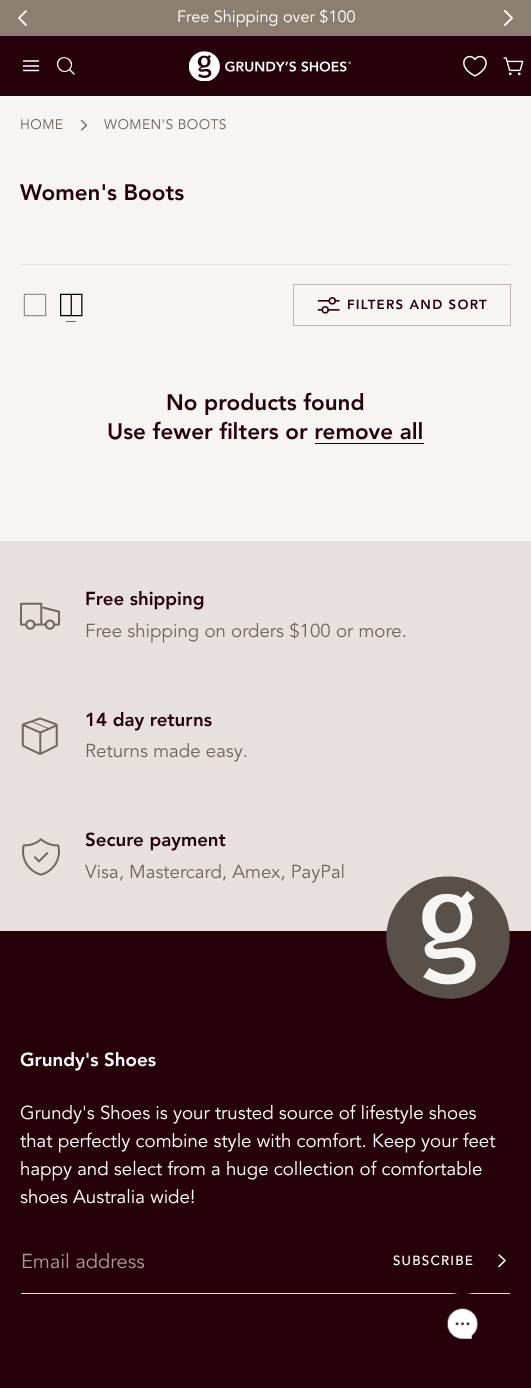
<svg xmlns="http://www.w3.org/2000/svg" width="531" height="1388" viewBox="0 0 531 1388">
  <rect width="100%" height="100%" fill="#f6f5f4"/>
  <rect x="0" y="0" width="531" height="36" fill="#8c7f71"/>
  <text x="177" y="22" font-family="Avenir" font-size="16.25" fill="#ffffff">Free Shipping over $100</text>
  <path d="M26 11L19 18L26 25" fill="none" stroke="#f4f2f1" stroke-width="1.9" stroke-linecap="round" stroke-linejoin="round"/>
  <path d="M505 11L512 18L505 25" fill="none" stroke="#ffffff" stroke-width="1.9" stroke-linecap="round" stroke-linejoin="round"/>
  <rect x="0" y="36" width="531" height="60" fill="#26000b"/>
  <path d="M74 74L69.5 69.5M69.5 69.5C75.5 63 66 53.5 59.5 59.5C53.5 66 63 75.5 69.5 69.5ZM23.5 61H38.5M23.5 66H38.5M23.5 70.5H38.5" fill="none" stroke="#ffffff" stroke-width="1.4" stroke-linecap="round" stroke-linejoin="round"/>
  <image x="189" y="51" width="162" height="30" href="img1.png"/>
  <image x="463" y="55" width="24" height="22" href="img2.png"/>
  <image x="503" y="57" width="21" height="19" href="img3.png"/>
  <text x="20" y="129" font-family="Avenir" font-size="13.75" letter-spacing="0.4" fill="#71665e">HOME</text>
  <path d="M81.5 120.5L86.5 125.5L81.5 130" fill="none" stroke="#71665e" stroke-width="1.3" stroke-linecap="round" stroke-linejoin="round"/>
  <text x="104" y="129" font-family="Avenir" font-size="13.75" letter-spacing="0.4" fill="#71665e">WOMEN'S BOOTS</text>
  <text x="20" y="200" font-family="Avenir" font-size="22.4" font-weight="900" fill="#26000b">Women's Boots</text>
  <rect x="20" y="264" width="491" height="1" fill="#e7e0dd"/>
  <image x="23" y="293" width="24" height="24" href="img4.png"/>
  <image x="60" y="293" width="23" height="24" href="img5.png"/>
  <rect x="66" y="321" width="10" height="1" fill="#71665e"/>
  <rect x="293.5" y="284.5" width="217" height="41" fill="none" stroke="#beb5b2"/>
  <image x="317" y="297" width="23" height="17" href="img6.png"/>
  <text x="347" y="309" font-family="Avenir" font-size="13.25" font-weight="900" letter-spacing="1.25" fill="#26000b">FILTERS AND SORT</text>
  <text x="166" y="410" font-family="Avenir" font-size="22.4" font-weight="900" fill="#26000b">No products found</text>
  <text x="107" y="439" font-family="Avenir" font-size="22.4" font-weight="900" fill="#26000b">Use fewer filters or remove all</text>
  <rect x="315" y="443" width="109" height="1" fill="#26000b"/>
  <rect x="0" y="541" width="531" height="390" fill="#e7e0dd"/>
  <image x="20" y="602" width="40" height="28" href="img7.png"/>
  <text x="85" y="605" font-family="Avenir" font-size="18.7" font-weight="900" fill="#26000b">Free shipping</text>
  <text x="85" y="637" font-family="Avenir" font-size="18.7" fill="#71665e">Free shipping on orders $100 or more.</text>
  <image x="21" y="717" width="37" height="38" href="img8.png"/>
  <text x="85" y="726" font-family="Avenir" font-size="18.7" font-weight="900" fill="#26000b">14 day returns</text>
  <text x="85" y="757" font-family="Avenir" font-size="18.7" fill="#71665e">Returns made easy.</text>
  <image x="22" y="838" width="38" height="38" href="img9.png"/>
  <text x="85" y="846" font-family="Avenir" font-size="18.7" font-weight="900" fill="#26000b">Secure payment</text>
  <text x="85" y="878" font-family="Avenir" font-size="18.7" fill="#71665e">Visa, Mastercard, Amex, PayPal</text>
  <rect x="0" y="931" width="531" height="457" fill="#26000b"/>
  <image x="386" y="876" width="124" height="123" href="img10.png"/>
  <text x="20" y="1066" font-family="Avenir" font-size="18.7" font-weight="900" fill="#ffffff">Grundy's Shoes</text>
  <text x="20" y="1119" font-family="Avenir" font-size="18.7" fill="#ffffff">Grundy's Shoes is your trusted source of lifestyle shoes</text>
  <text x="20" y="1147" font-family="Avenir" font-size="18.7" fill="#ffffff">that perfectly combine style with comfort. Keep your feet</text>
  <text x="20" y="1175" font-family="Avenir" font-size="18.7" fill="#ffffff">happy and select from a huge collection of comfortable</text>
  <text x="20" y="1203" font-family="Avenir" font-size="18.7" fill="#ffffff">shoes Australia wide!</text>
  <rect x="21" y="1293" width="489" height="1" fill="#dddddd"/>
  <text x="21" y="1268" font-family="Avenir" font-size="20" fill="#a8999d">Email address</text>
  <text x="393" y="1265" font-family="Avenir" font-size="13.25" font-weight="500" letter-spacing="1.25" fill="#ffffff">SUBSCRIBE</text>
  <path d="M499 1255L505 1260.5L499 1266.5" fill="none" stroke="#ffffff" stroke-width="1.6" stroke-linecap="round" stroke-linejoin="round"/>
  <image x="447" y="1293" width="31" height="46" href="img11.png"/>
</svg>
